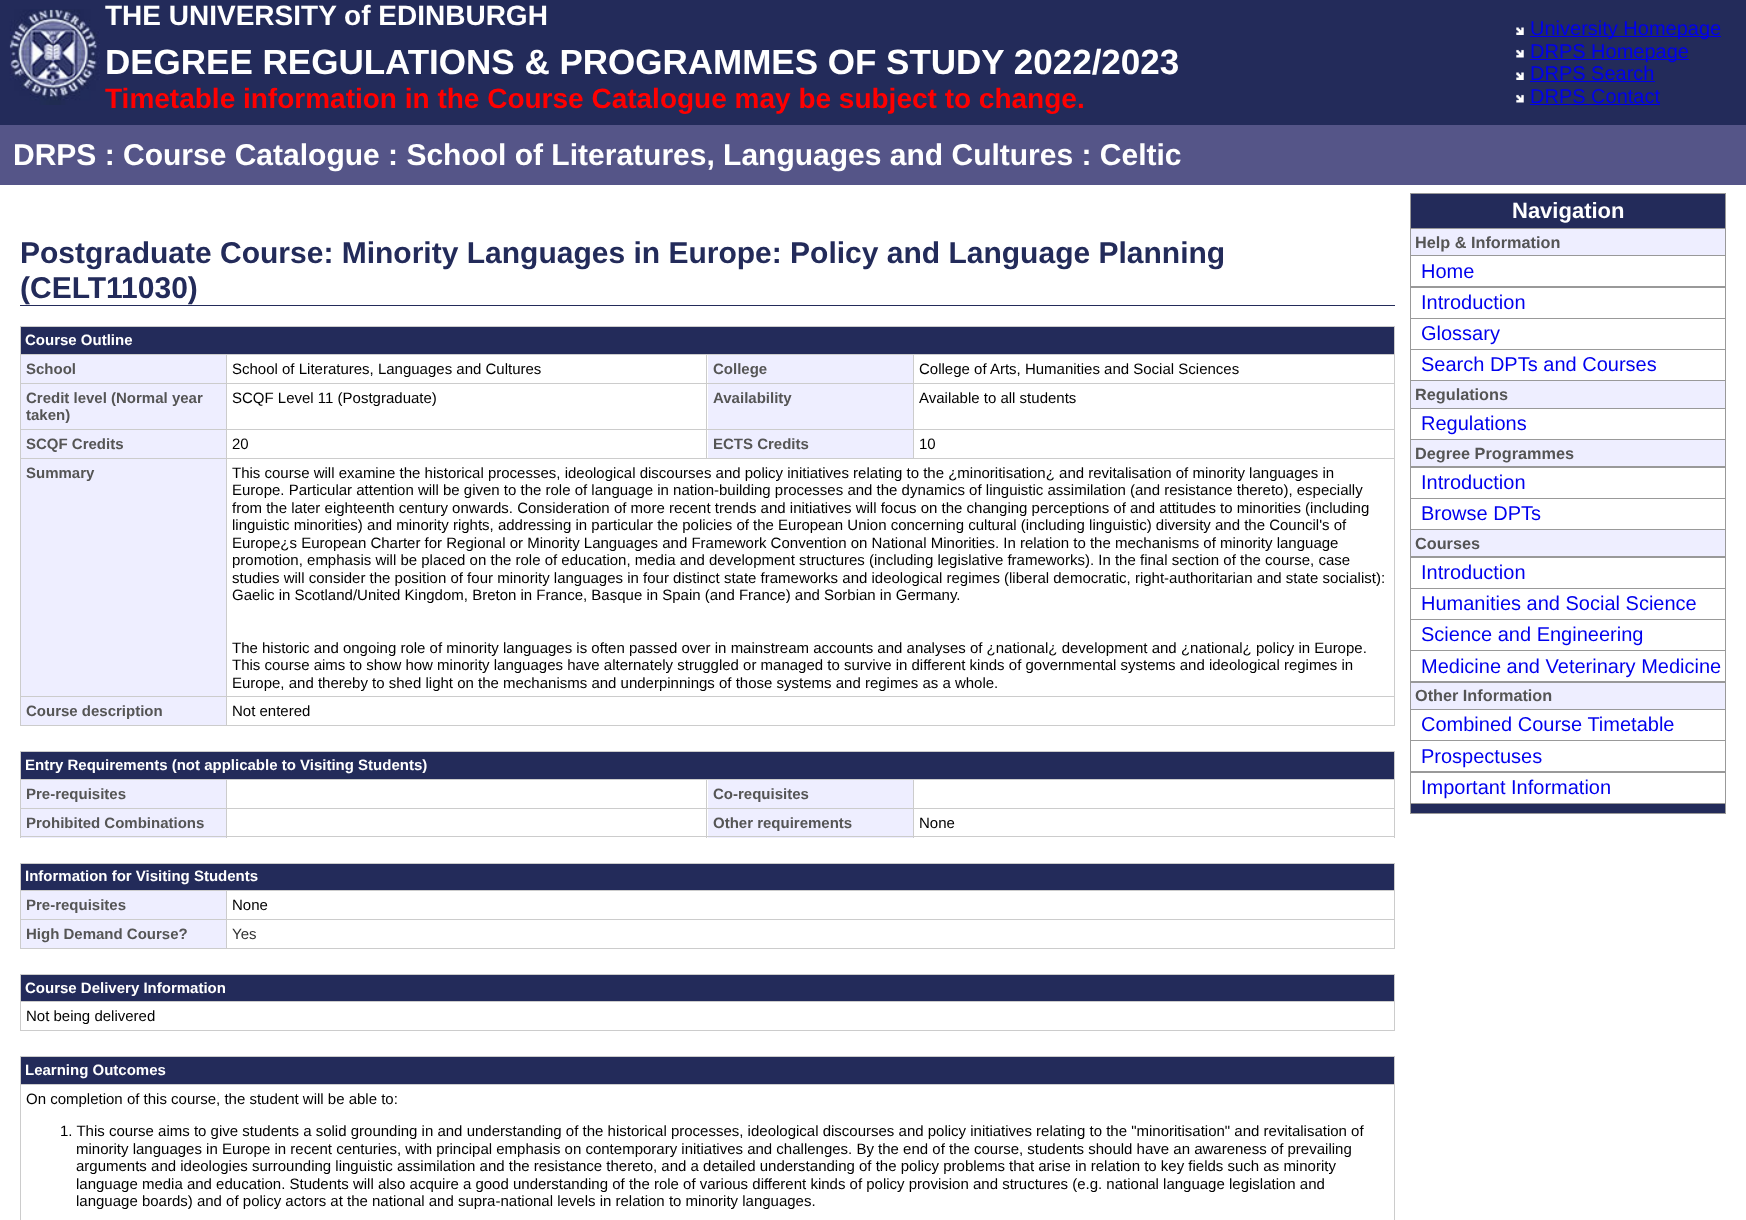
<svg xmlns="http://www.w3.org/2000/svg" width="1746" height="1220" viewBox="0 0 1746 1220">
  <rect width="100%" height="100%" fill="#ffffff"/>
  <rect x="0" y="0" width="1746" height="125" fill="#232b5a"/>
  <image x="9" y="9" width="91" height="96" href="img1.png"/>
  <text x="105" y="25" font-family="Liberation Sans" font-size="28" font-weight="bold" fill="#ffffff">THE UNIVERSITY of EDINBURGH</text>
  <text x="105" y="74" font-family="Liberation Sans" font-size="35" font-weight="bold" fill="#ffffff">DEGREE REGULATIONS &amp; PROGRAMMES OF STUDY 2022/2023</text>
  <text x="105" y="108" font-family="Liberation Sans" font-size="28" font-weight="bold" fill="#ff0000">Timetable information in the Course Catalogue may be subject to change.</text>
  <image x="1516" y="27" width="8" height="8" href="img2.png"/>
  <rect x="1530" y="36" width="191" height="1" fill="#0000ee"/>
  <text x="1530" y="35" font-family="Liberation Sans" font-size="20" fill="#0000ee">University Homepage</text>
  <image x="1516" y="49" width="8" height="9" href="img3.png"/>
  <rect x="1530" y="59" width="159" height="1" fill="#0000ee"/>
  <text x="1530" y="58" font-family="Liberation Sans" font-size="20" fill="#0000ee">DRPS Homepage</text>
  <image x="1516" y="72" width="8" height="8" href="img2.png"/>
  <text x="1530" y="80" font-family="Liberation Sans" font-size="20" fill="#0000ee">DRPS Search</text>
  <rect x="1530" y="81" width="125" height="1" fill="#0000ee"/>
  <image x="1516" y="94" width="8" height="9" href="img3.png"/>
  <text x="1530" y="103" font-family="Liberation Sans" font-size="20" fill="#0000ee">DRPS Contact</text>
  <rect x="1530" y="104" width="130" height="1" fill="#0000ee"/>
  <rect x="0" y="125" width="1746" height="60" fill="#555588"/>
  <text x="13" y="165" font-family="Liberation Sans" font-size="30" font-weight="bold" fill="#ffffff">DRPS : Course Catalogue : School of Literatures, Languages and Cultures : Celtic</text>
  <rect x="20" y="305" width="1375" height="1" fill="#232b5a"/>
  <text x="20" y="263" font-family="Liberation Sans" font-size="30" font-weight="bold" fill="#232b5a">Postgraduate Course: Minority Languages in Europe: Policy and Language Planning</text>
  <text x="20" y="298" font-family="Liberation Sans" font-size="30" font-weight="bold" fill="#232b5a">(CELT11030)</text>
  <rect x="20" y="326" width="1375" height="1" fill="#cccccc"/>
  <rect x="1394" y="326" width="1" height="400" fill="#cccccc"/>
  <rect x="20" y="725" width="1375" height="1" fill="#cccccc"/>
  <rect x="20" y="326" width="1" height="400" fill="#cccccc"/>
  <rect x="21" y="327" width="1373" height="27" fill="#232b5a"/>
  <text x="25" y="345" font-family="Liberation Sans" font-size="15" font-weight="bold" fill="#ffffff">Course Outline</text>
  <rect x="21" y="355" width="205" height="28" fill="#eeeeff"/>
  <rect x="913" y="354" width="482" height="1" fill="#cccccc"/>
  <rect x="913" y="383" width="482" height="1" fill="#cccccc"/>
  <rect x="913" y="429" width="482" height="1" fill="#cccccc"/>
  <rect x="226" y="458" width="1169" height="1" fill="#cccccc"/>
  <rect x="913" y="429" width="1" height="30" fill="#cccccc"/>
  <rect x="706" y="429" width="208" height="1" fill="#cccccc"/>
  <rect x="913" y="383" width="1" height="47" fill="#cccccc"/>
  <rect x="706" y="383" width="208" height="1" fill="#cccccc"/>
  <rect x="913" y="354" width="1" height="30" fill="#cccccc"/>
  <rect x="706" y="354" width="208" height="1" fill="#cccccc"/>
  <rect x="706" y="429" width="1" height="30" fill="#cccccc"/>
  <rect x="226" y="429" width="482" height="1" fill="#cccccc"/>
  <rect x="706" y="383" width="1" height="47" fill="#cccccc"/>
  <rect x="226" y="383" width="482" height="1" fill="#cccccc"/>
  <rect x="706" y="354" width="1" height="30" fill="#cccccc"/>
  <rect x="226" y="354" width="482" height="1" fill="#cccccc"/>
  <rect x="21" y="459" width="205" height="266" fill="#eeeeff"/>
  <rect x="226" y="696" width="1169" height="1" fill="#cccccc"/>
  <rect x="226" y="696" width="1" height="30" fill="#cccccc"/>
  <rect x="20" y="696" width="208" height="1" fill="#cccccc"/>
  <rect x="226" y="458" width="1" height="240" fill="#cccccc"/>
  <rect x="20" y="458" width="208" height="1" fill="#cccccc"/>
  <rect x="226" y="429" width="1" height="30" fill="#cccccc"/>
  <rect x="20" y="429" width="208" height="1" fill="#cccccc"/>
  <rect x="226" y="383" width="1" height="47" fill="#cccccc"/>
  <rect x="20" y="383" width="208" height="1" fill="#cccccc"/>
  <rect x="226" y="354" width="1" height="30" fill="#cccccc"/>
  <rect x="20" y="354" width="208" height="1" fill="#cccccc"/>
  <text x="26" y="374" font-family="Liberation Sans" font-size="15" font-weight="bold" fill="#555555">School</text>
  <text x="232" y="374" font-family="Liberation Sans" font-size="15" fill="#000000">School of Literatures, Languages and Cultures</text>
  <rect x="708" y="355" width="205" height="28" fill="#eeeeff"/>
  <text x="713" y="374" font-family="Liberation Sans" font-size="15" font-weight="bold" fill="#555555">College</text>
  <text x="919" y="374" font-family="Liberation Sans" font-size="15" fill="#000000">College of Arts, Humanities and Social Sciences</text>
  <rect x="21" y="384" width="205" height="45" fill="#eeeeff"/>
  <text x="26" y="403" font-family="Liberation Sans" font-size="15" font-weight="bold" fill="#555555">Credit level (Normal year</text>
  <text x="26" y="420" font-family="Liberation Sans" font-size="15" font-weight="bold" fill="#555555">taken)</text>
  <text x="232" y="403" font-family="Liberation Sans" font-size="15" fill="#000000">SCQF Level 11 (Postgraduate)</text>
  <rect x="708" y="384" width="205" height="45" fill="#eeeeff"/>
  <text x="713" y="403" font-family="Liberation Sans" font-size="15" font-weight="bold" fill="#555555">Availability</text>
  <text x="919" y="403" font-family="Liberation Sans" font-size="15" fill="#000000">Available to all students</text>
  <rect x="21" y="430" width="205" height="28" fill="#eeeeff"/>
  <text x="26" y="449" font-family="Liberation Sans" font-size="15" font-weight="bold" fill="#555555">SCQF Credits</text>
  <text x="232" y="449" font-family="Liberation Sans" font-size="15" fill="#000000">20</text>
  <rect x="708" y="430" width="205" height="28" fill="#eeeeff"/>
  <text x="713" y="449" font-family="Liberation Sans" font-size="15" font-weight="bold" fill="#555555">ECTS Credits</text>
  <text x="919" y="449" font-family="Liberation Sans" font-size="15" fill="#000000">10</text>
  <text x="26" y="478" font-family="Liberation Sans" font-size="15" font-weight="bold" fill="#555555">Summary</text>
  <text x="232" y="478" font-family="Liberation Sans" font-size="15" fill="#000000">This course will examine the historical processes, ideological discourses and policy initiatives relating to the ¿minoritisation¿ and revitalisation of minority languages in</text>
  <text x="232" y="495" font-family="Liberation Sans" font-size="15" fill="#000000">Europe. Particular attention will be given to the role of language in nation-building processes and the dynamics of linguistic assimilation (and resistance thereto), especially</text>
  <text x="232" y="513" font-family="Liberation Sans" font-size="15" fill="#000000">from the later eighteenth century onwards. Consideration of more recent trends and initiatives will focus on the changing perceptions of and attitudes to minorities (including</text>
  <text x="232" y="530" font-family="Liberation Sans" font-size="15" fill="#000000">linguistic minorities) and minority rights, addressing in particular the policies of the European Union concerning cultural (including linguistic) diversity and the Council's of</text>
  <text x="232" y="548" font-family="Liberation Sans" font-size="15" fill="#000000">Europe¿s European Charter for Regional or Minority Languages and Framework Convention on National Minorities. In relation to the mechanisms of minority language</text>
  <text x="232" y="565" font-family="Liberation Sans" font-size="15" fill="#000000">promotion, emphasis will be placed on the role of education, media and development structures (including legislative frameworks). In the final section of the course, case</text>
  <text x="232" y="583" font-family="Liberation Sans" font-size="15" fill="#000000">studies will consider the position of four minority languages in four distinct state frameworks and ideological regimes (liberal democratic, right-authoritarian and state socialist):</text>
  <text x="232" y="600" font-family="Liberation Sans" font-size="15" fill="#000000">Gaelic in Scotland/United Kingdom, Breton in France, Basque in Spain (and France) and Sorbian in Germany.</text>
  <text x="232" y="653" font-family="Liberation Sans" font-size="15" fill="#000000">The historic and ongoing role of minority languages is often passed over in mainstream accounts and analyses of ¿national¿ development and ¿national¿ policy in Europe.</text>
  <text x="232" y="670" font-family="Liberation Sans" font-size="15" fill="#000000">This course aims to show how minority languages have alternately struggled or managed to survive in different kinds of governmental systems and ideological regimes in</text>
  <text x="232" y="688" font-family="Liberation Sans" font-size="15" fill="#000000">Europe, and thereby to shed light on the mechanisms and underpinnings of those systems and regimes as a whole.</text>
  <text x="26" y="716" font-family="Liberation Sans" font-size="15" font-weight="bold" fill="#555555">Course description</text>
  <text x="232" y="716" font-family="Liberation Sans" font-size="15" fill="#000000">Not entered</text>
  <rect x="20" y="751" width="1375" height="1" fill="#cccccc"/>
  <rect x="1394" y="751" width="1" height="87" fill="#cccccc"/>
  <rect x="21" y="809" width="205" height="29" fill="#eeeeff"/>
  <rect x="708" y="809" width="205" height="29" fill="#eeeeff"/>
  <rect x="20" y="836" width="1375" height="1" fill="#cccccc"/>
  <rect x="20" y="751" width="1" height="87" fill="#cccccc"/>
  <rect x="21" y="752" width="1373" height="27" fill="#232b5a"/>
  <text x="25" y="770" font-family="Liberation Sans" font-size="15" font-weight="bold" fill="#ffffff">Entry Requirements (not applicable to Visiting Students)</text>
  <rect x="21" y="780" width="205" height="28" fill="#eeeeff"/>
  <rect x="913" y="779" width="482" height="1" fill="#cccccc"/>
  <rect x="913" y="808" width="482" height="1" fill="#cccccc"/>
  <rect x="913" y="808" width="1" height="30" fill="#cccccc"/>
  <rect x="706" y="808" width="208" height="1" fill="#cccccc"/>
  <rect x="913" y="779" width="1" height="30" fill="#cccccc"/>
  <rect x="706" y="779" width="208" height="1" fill="#cccccc"/>
  <rect x="706" y="808" width="1" height="30" fill="#cccccc"/>
  <rect x="226" y="808" width="482" height="1" fill="#cccccc"/>
  <rect x="706" y="779" width="1" height="30" fill="#cccccc"/>
  <rect x="226" y="779" width="482" height="1" fill="#cccccc"/>
  <rect x="226" y="808" width="1" height="30" fill="#cccccc"/>
  <rect x="20" y="808" width="208" height="1" fill="#cccccc"/>
  <rect x="226" y="779" width="1" height="30" fill="#cccccc"/>
  <rect x="20" y="779" width="208" height="1" fill="#cccccc"/>
  <text x="26" y="799" font-family="Liberation Sans" font-size="15" font-weight="bold" fill="#555555">Pre-requisites</text>
  <rect x="708" y="780" width="205" height="28" fill="#eeeeff"/>
  <text x="713" y="799" font-family="Liberation Sans" font-size="15" font-weight="bold" fill="#555555">Co-requisites</text>
  <text x="26" y="828" font-family="Liberation Sans" font-size="15" font-weight="bold" fill="#555555">Prohibited Combinations</text>
  <text x="713" y="828" font-family="Liberation Sans" font-size="15" font-weight="bold" fill="#555555">Other requirements</text>
  <text x="919" y="828" font-family="Liberation Sans" font-size="15" fill="#000000">None</text>
  <rect x="20" y="863" width="1375" height="1" fill="#cccccc"/>
  <rect x="1394" y="863" width="1" height="86" fill="#cccccc"/>
  <rect x="20" y="948" width="1375" height="1" fill="#cccccc"/>
  <rect x="20" y="863" width="1" height="86" fill="#cccccc"/>
  <rect x="21" y="864" width="1373" height="26" fill="#232b5a"/>
  <text x="25" y="881" font-family="Liberation Sans" font-size="15" font-weight="bold" fill="#ffffff">Information for Visiting Students</text>
  <rect x="21" y="891" width="205" height="28" fill="#eeeeff"/>
  <rect x="226" y="890" width="1169" height="1" fill="#cccccc"/>
  <rect x="226" y="919" width="1169" height="1" fill="#cccccc"/>
  <rect x="226" y="919" width="1" height="30" fill="#cccccc"/>
  <rect x="20" y="919" width="208" height="1" fill="#cccccc"/>
  <rect x="226" y="890" width="1" height="30" fill="#cccccc"/>
  <rect x="20" y="890" width="208" height="1" fill="#cccccc"/>
  <text x="26" y="910" font-family="Liberation Sans" font-size="15" font-weight="bold" fill="#555555">Pre-requisites</text>
  <text x="232" y="910" font-family="Liberation Sans" font-size="15" fill="#000000">None</text>
  <rect x="21" y="920" width="205" height="28" fill="#eeeeff"/>
  <text x="26" y="939" font-family="Liberation Sans" font-size="15" font-weight="bold" fill="#555555">High Demand Course?</text>
  <text x="232" y="939" font-family="Liberation Sans" font-size="15" fill="#333333">Yes</text>
  <rect x="20" y="974" width="1375" height="1" fill="#cccccc"/>
  <rect x="1394" y="974" width="1" height="57" fill="#cccccc"/>
  <rect x="20" y="1030" width="1375" height="1" fill="#cccccc"/>
  <rect x="20" y="974" width="1" height="57" fill="#cccccc"/>
  <rect x="21" y="975" width="1373" height="26" fill="#232b5a"/>
  <text x="25" y="993" font-family="Liberation Sans" font-size="15" font-weight="bold" fill="#ffffff">Course Delivery Information</text>
  <rect x="20" y="1001" width="1375" height="1" fill="#cccccc"/>
  <text x="26" y="1021" font-family="Liberation Sans" font-size="15" fill="#000000">Not being delivered</text>
  <rect x="20" y="1056" width="1375" height="1" fill="#cccccc"/>
  <rect x="1394" y="1056" width="1" height="164" fill="#cccccc"/>
  <rect x="20" y="1056" width="1" height="164" fill="#cccccc"/>
  <rect x="21" y="1057" width="1373" height="27" fill="#232b5a"/>
  <text x="25" y="1075" font-family="Liberation Sans" font-size="15" font-weight="bold" fill="#ffffff">Learning Outcomes</text>
  <rect x="20" y="1084" width="1375" height="1" fill="#cccccc"/>
  <text x="26" y="1104" font-family="Liberation Sans" font-size="15" fill="#000000">On completion of this course, the student will be able to:</text>
  <text x="60" y="1136" font-family="Liberation Sans" font-size="15" fill="#000000">1. This course aims to give students a solid grounding in and understanding of the historical processes, ideological discourses and policy initiatives relating to the "minoritisation" and revitalisation of</text>
  <text x="76" y="1154" font-family="Liberation Sans" font-size="15" fill="#000000">minority languages in Europe in recent centuries, with principal emphasis on contemporary initiatives and challenges. By the end of the course, students should have an awareness of prevailing</text>
  <text x="76" y="1171" font-family="Liberation Sans" font-size="15" fill="#000000">arguments and ideologies surrounding linguistic assimilation and the resistance thereto, and a detailed understanding of the policy problems that arise in relation to key fields such as minority</text>
  <text x="76" y="1189" font-family="Liberation Sans" font-size="15" fill="#000000">language media and education. Students will also acquire a good understanding of the role of various different kinds of policy provision and structures (e.g. national language legislation and</text>
  <text x="76" y="1206" font-family="Liberation Sans" font-size="15" fill="#000000">language boards) and of policy actors at the national and supra-national levels in relation to minority languages.</text>
  <rect x="1410" y="193" width="316" height="621" fill="#999999"/>
  <rect x="1411" y="194" width="314" height="34" fill="#232b5a"/>
  <text x="1512" y="218" font-family="Liberation Sans" font-size="22" font-weight="bold" fill="#ffffff">Navigation</text>
  <rect x="1411" y="229" width="314" height="26" fill="#eeeeff"/>
  <text x="1415" y="248" font-family="Liberation Sans" font-size="16.25" font-weight="bold" fill="#555555">Help &amp; Information</text>
  <rect x="1411" y="256" width="314" height="30" fill="#ffffff"/>
  <text x="1421" y="278" font-family="Liberation Sans" font-size="20" fill="#0000ee">Home</text>
  <rect x="1411" y="288" width="314" height="30" fill="#ffffff"/>
  <text x="1421" y="309" font-family="Liberation Sans" font-size="20" fill="#0000ee">Introduction</text>
  <rect x="1411" y="319" width="314" height="30" fill="#ffffff"/>
  <text x="1421" y="340" font-family="Liberation Sans" font-size="20" fill="#0000ee">Glossary</text>
  <rect x="1411" y="350" width="314" height="30" fill="#ffffff"/>
  <text x="1421" y="371" font-family="Liberation Sans" font-size="20" fill="#0000ee">Search DPTs and Courses</text>
  <rect x="1411" y="381" width="314" height="27" fill="#eeeeff"/>
  <text x="1415" y="400" font-family="Liberation Sans" font-size="16.25" font-weight="bold" fill="#555555">Regulations</text>
  <rect x="1411" y="409" width="314" height="30" fill="#ffffff"/>
  <text x="1421" y="430" font-family="Liberation Sans" font-size="20" fill="#0000ee">Regulations</text>
  <rect x="1411" y="440" width="314" height="26" fill="#eeeeff"/>
  <text x="1415" y="459" font-family="Liberation Sans" font-size="16.25" font-weight="bold" fill="#555555">Degree Programmes</text>
  <rect x="1411" y="468" width="314" height="30" fill="#ffffff"/>
  <text x="1421" y="489" font-family="Liberation Sans" font-size="20" fill="#0000ee">Introduction</text>
  <rect x="1411" y="499" width="314" height="30" fill="#ffffff"/>
  <text x="1421" y="520" font-family="Liberation Sans" font-size="20" fill="#0000ee">Browse DPTs</text>
  <rect x="1411" y="530" width="314" height="26" fill="#eeeeff"/>
  <text x="1415" y="549" font-family="Liberation Sans" font-size="16.25" font-weight="bold" fill="#555555">Courses</text>
  <rect x="1411" y="558" width="314" height="30" fill="#ffffff"/>
  <text x="1421" y="579" font-family="Liberation Sans" font-size="20" fill="#0000ee">Introduction</text>
  <rect x="1411" y="589" width="314" height="30" fill="#ffffff"/>
  <text x="1421" y="610" font-family="Liberation Sans" font-size="20" fill="#0000ee">Humanities and Social Science</text>
  <rect x="1411" y="620" width="314" height="30" fill="#ffffff"/>
  <text x="1421" y="641" font-family="Liberation Sans" font-size="20" fill="#0000ee">Science and Engineering</text>
  <rect x="1411" y="651" width="314" height="30" fill="#ffffff"/>
  <text x="1421" y="673" font-family="Liberation Sans" font-size="20" fill="#0000ee">Medicine and Veterinary Medicine</text>
  <rect x="1411" y="683" width="314" height="26" fill="#eeeeff"/>
  <text x="1415" y="701" font-family="Liberation Sans" font-size="16.25" font-weight="bold" fill="#555555">Other Information</text>
  <rect x="1411" y="710" width="314" height="30" fill="#ffffff"/>
  <text x="1421" y="731" font-family="Liberation Sans" font-size="20" fill="#0000ee">Combined Course Timetable</text>
  <rect x="1411" y="741" width="314" height="30" fill="#ffffff"/>
  <text x="1421" y="763" font-family="Liberation Sans" font-size="20" fill="#0000ee">Prospectuses</text>
  <rect x="1411" y="773" width="314" height="30" fill="#ffffff"/>
  <text x="1421" y="794" font-family="Liberation Sans" font-size="20" fill="#0000ee">Important Information</text>
  <rect x="1411" y="804" width="314" height="9" fill="#232b5a"/>
</svg>
